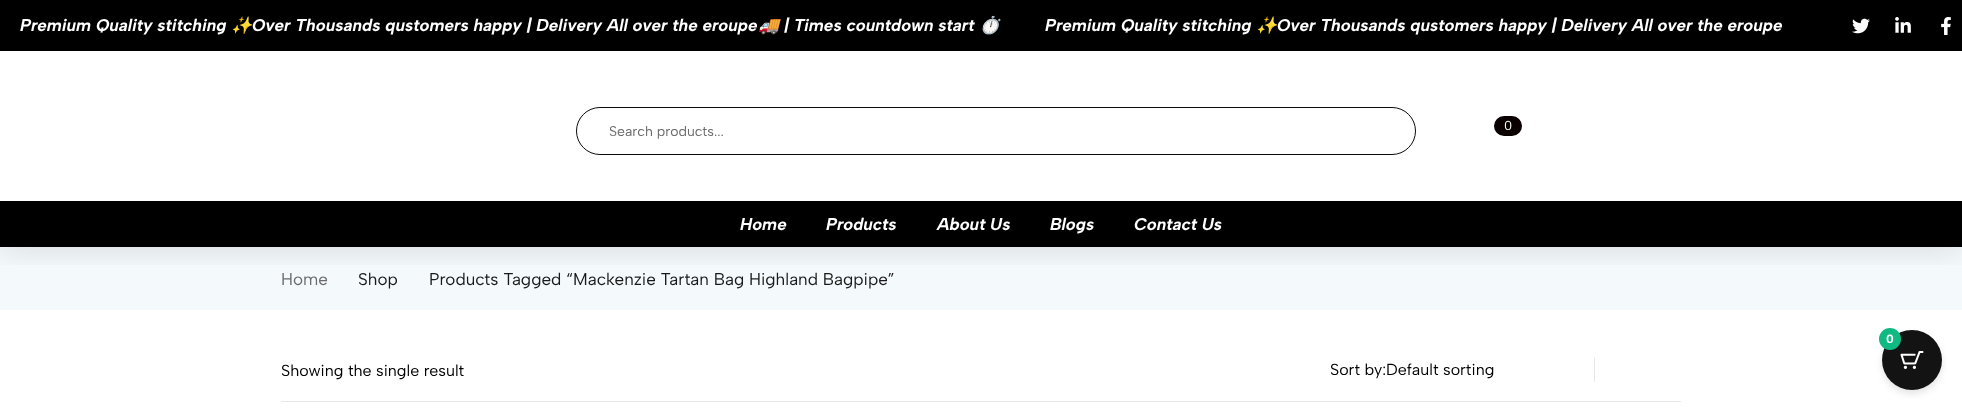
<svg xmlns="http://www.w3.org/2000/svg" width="1962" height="410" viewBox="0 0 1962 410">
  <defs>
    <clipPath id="clip1"><rect x="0" y="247" width="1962" height="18"/></clipPath>
    <filter id="blur1" x="-50%" y="-200%" width="200%" height="500%"><feGaussianBlur stdDeviation="15"/></filter>
    <filter id="blur2" x="-50%" y="-200%" width="200%" height="500%"><feGaussianBlur stdDeviation="3.5"/></filter>
  </defs>
  <rect width="100%" height="100%" fill="#ffffff"/>
  <rect x="0" y="247" width="1962" height="63" fill="#f4f9fc"/>
  <g clip-path="url(#clip1)">
    <rect x="0" y="5" width="1962" height="247" fill="#000000" fill-opacity="0.1" filter="url(#blur1)"/>
  </g>
  <rect x="0" y="0" width="1962" height="51" fill="#000000"/>
  <text x="20" y="31" font-family="Albert Sans" font-size="17" font-weight="bold" font-style="italic" fill="#ffffff">Premium Quality stitching</text>
  <text x="231" y="31" font-family="Noto Color Emoji" font-size="17" font-weight="bold" font-style="italic" fill="#ffffff">✨</text>
  <text x="252" y="31" font-family="Albert Sans" font-size="17" font-weight="bold" font-style="italic" fill="#ffffff">Over Thousands qustomers happy | Delivery All over the eroupe</text>
  <text x="758" y="31" font-family="Noto Color Emoji" font-size="17" font-weight="bold" font-style="italic" fill="#ffffff">🚚</text>
  <text x="784" y="31" font-family="Albert Sans" font-size="17" font-weight="bold" font-style="italic" fill="#ffffff">| Times countdown start</text>
  <text x="979" y="31" font-family="Noto Color Emoji" font-size="17" font-weight="bold" font-style="italic" fill="#ffffff">⏱️</text>
  <text x="1045" y="31" font-family="Albert Sans" font-size="17" font-weight="bold" font-style="italic" fill="#ffffff">Premium Quality stitching</text>
  <text x="1256" y="31" font-family="Noto Color Emoji" font-size="17" font-weight="bold" font-style="italic" fill="#ffffff">✨</text>
  <text x="1277" y="31" font-family="Albert Sans" font-size="17" font-weight="bold" font-style="italic" fill="#ffffff">Over Thousands qustomers happy | Delivery All over the eroupe</text>
  <image x="1852" y="18" width="18" height="16" href="img1.png"/>
  <image x="1895" y="17" width="16" height="16" href="img2.png"/>
  <image x="1941" y="17" width="10" height="18" href="img3.png"/>
  <rect x="576.5" y="107.5" width="839" height="47" rx="23.5" fill="none" stroke="#0b0b0b"/>
  <text x="609" y="136" font-family="Albert Sans" font-size="14" fill="#6b6b6b">Search products...</text>
  <rect x="1494" y="116" width="28" height="20" rx="10" fill="#0a0000"/>
  <text x="1504" y="130" font-family="Albert Sans" font-size="13" fill="#ffffff">0</text>
  <rect x="0" y="201" width="1962" height="46" fill="#000000"/>
  <text x="740" y="230" font-family="Albert Sans" font-size="17" font-weight="bold" font-style="italic" fill="#ffffff">Home</text>
  <text x="826" y="230" font-family="Albert Sans" font-size="17" font-weight="bold" font-style="italic" fill="#ffffff">Products</text>
  <text x="937" y="230" font-family="Albert Sans" font-size="17" font-weight="bold" font-style="italic" fill="#ffffff">About Us</text>
  <text x="1050" y="230" font-family="Albert Sans" font-size="17" font-weight="bold" font-style="italic" fill="#ffffff">Blogs</text>
  <text x="1134" y="230" font-family="Albert Sans" font-size="17" font-weight="bold" font-style="italic" fill="#ffffff">Contact Us</text>
  <text x="281" y="285" font-family="Albert Sans" font-size="17" fill="#6b6b6b">Home</text>
  <text x="358" y="285" font-family="Albert Sans" font-size="17" fill="#191919">Shop</text>
  <text x="429" y="285" font-family="Albert Sans" font-size="17" fill="#191919">Products Tagged “Mackenzie Tartan Bag Highland Bagpipe”</text>
  <rect x="281" y="401" width="1400" height="1" fill="#e7e7e7"/>
  <text x="281" y="376" font-family="Albert Sans" font-size="16" fill="#000000">Showing the single result</text>
  <text x="1330" y="375" font-family="Albert Sans" font-size="16" fill="#000000">Sort by:</text>
  <text x="1386" y="375" font-family="Albert Sans" font-size="16" fill="#000000">Default sorting</text>
  <rect x="1594" y="358" width="1" height="24" fill="#e7e7e7"/>
  <rect x="1882" y="334" width="60" height="60" rx="30" fill="#000000" fill-opacity="0.1" filter="url(#blur2)"/>
  <circle cx="1912" cy="360" r="30" fill="#131313"/>
  <circle cx="1890" cy="339" r="11" fill="#10b981"/>
  <text x="1886" y="343" font-family="Albert Sans" font-size="12" font-weight="bold" fill="#ffffff">0</text>
  <image x="1900" y="351" width="24" height="18" href="img4.png"/>
</svg>
